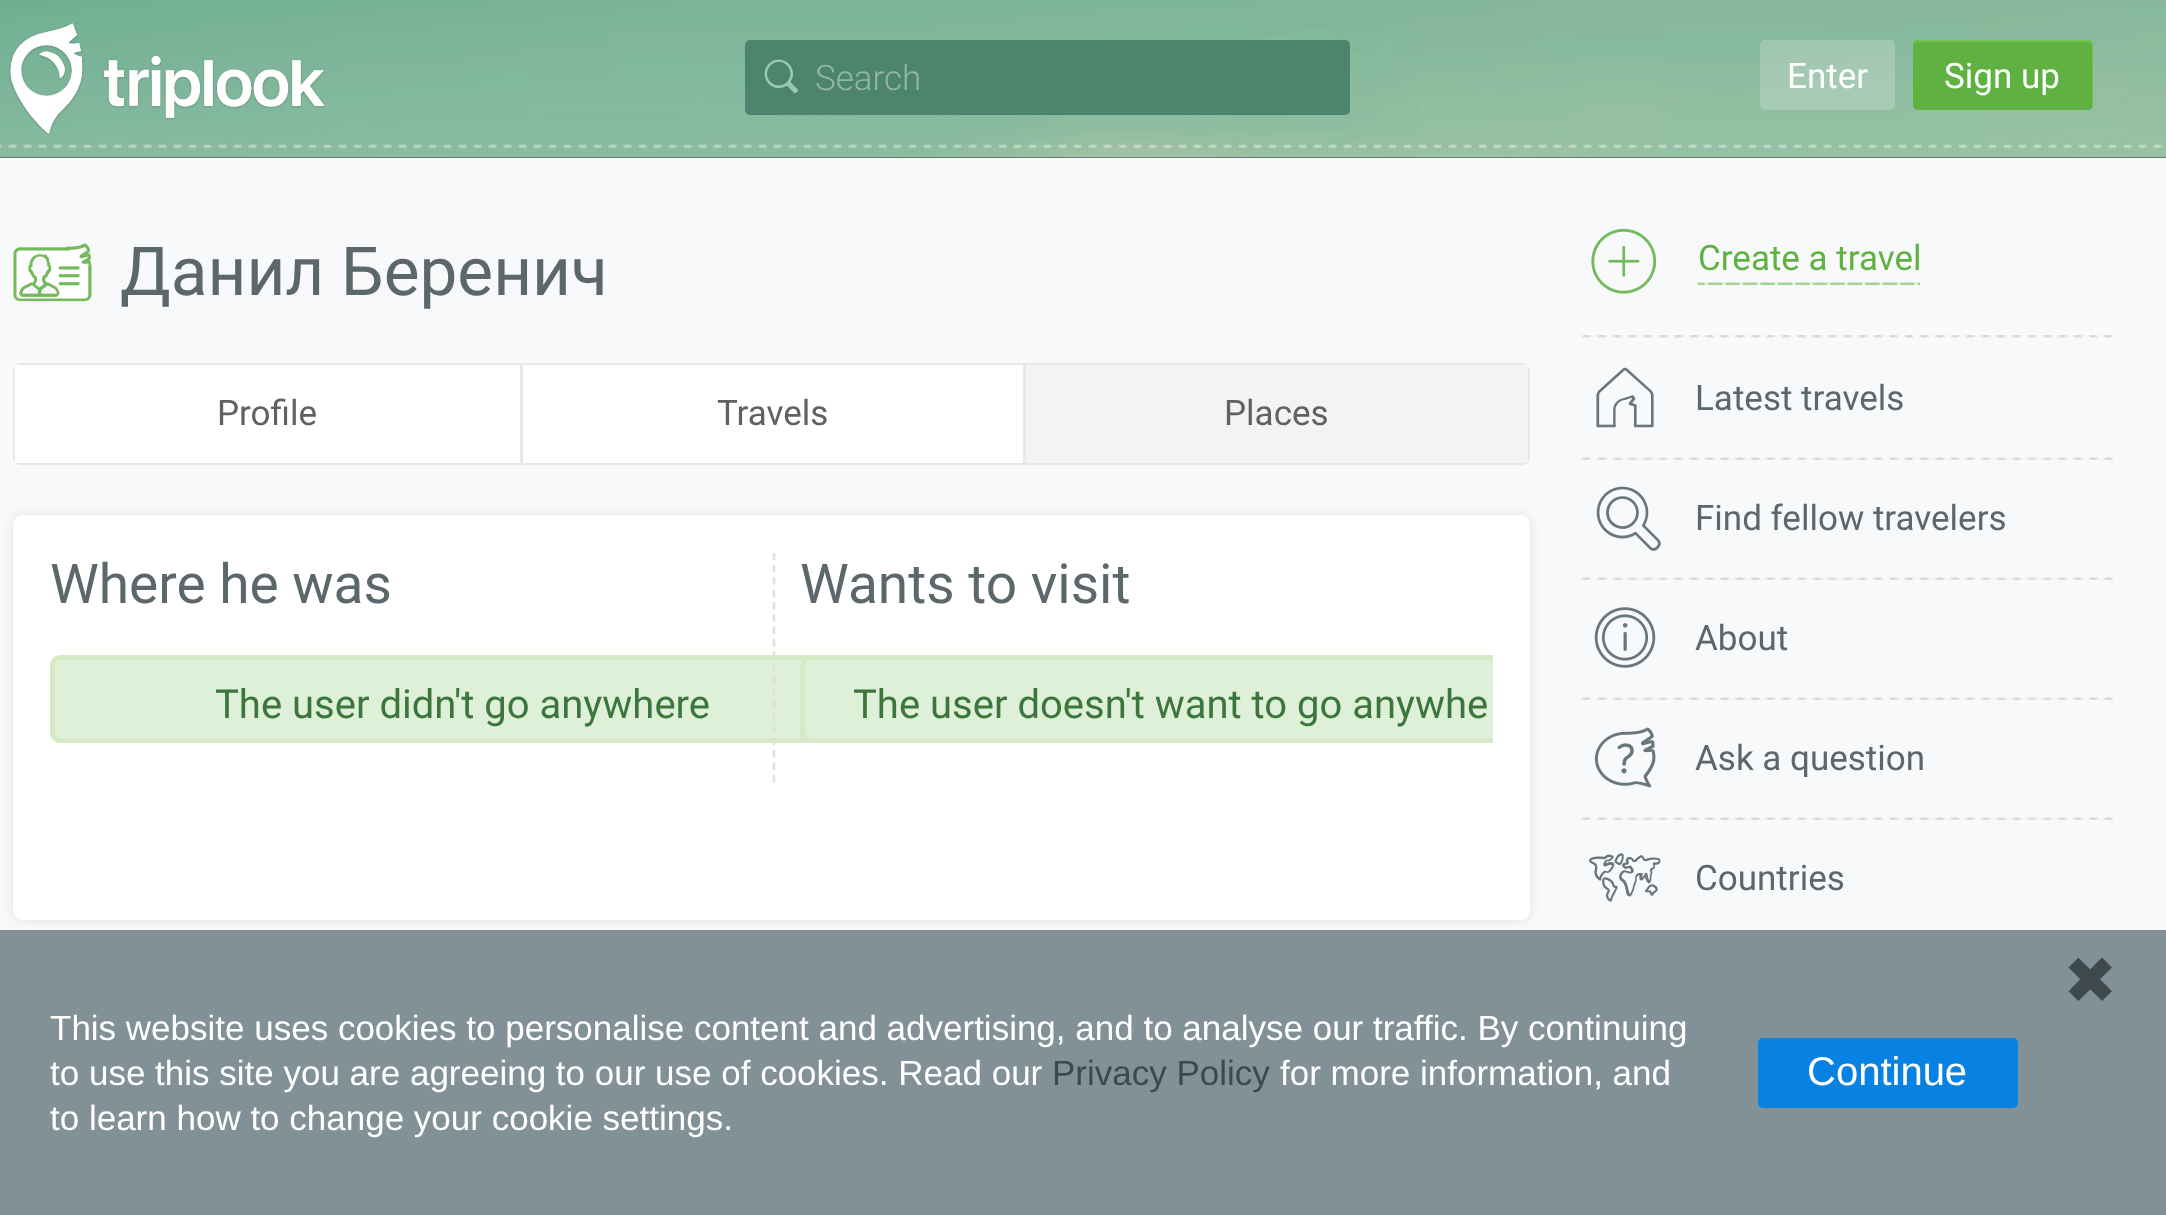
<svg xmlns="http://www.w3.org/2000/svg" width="2166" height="1215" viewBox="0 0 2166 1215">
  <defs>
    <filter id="blur1" x="-50%" y="-200%" width="200%" height="500%"><feGaussianBlur stdDeviation="6"/></filter>
    <clipPath id="clip1"><rect x="50" y="553" width="1443" height="230"/></clipPath>
  </defs>
  <rect width="100%" height="100%" fill="#f8f9fb"/>
  <rect x="0" y="157" width="2166" height="1" fill="#343e41"/>
  <image x="0" y="0" width="2166" height="158" href="img1.png"/>
  <image x="9" y="23" width="316" height="112" href="img2.png"/>
  <rect x="745" y="40" width="605" height="75" rx="5" fill="#4d846d"/>
  <image x="764" y="59" width="34" height="34" href="img3.png"/>
  <text x="815" y="90" font-family="Roboto" font-size="35" font-weight="300" fill="#94b5a7">Search</text>
  <rect x="1760" y="40" width="135" height="70" rx="5" fill="#ffffff" fill-opacity="0.2"/>
  <text x="1787" y="88" font-family="Roboto" font-size="35" fill="#ffffff">Enter</text>
  <rect x="1913" y="40" width="180" height="70" rx="5" fill="#5fb241"/>
  <path d="M1918 42H2088C2090 42 2092 45 2092 48V108C2093 107 2093 106 2093 105V45C2093 42 2091 40 2088 40H1918C1915 40 1913 42 1913 45C1914 43 1916 42 1918 42Z" fill="#6dc44e"/>
  <text x="1944" y="88" font-family="Roboto" font-size="35" fill="#ffffff">Sign up</text>
  <image x="13" y="243" width="79" height="59" href="img4.png"/>
  <text x="120" y="295" font-family="Roboto" font-size="67.5" fill="#5b676a">Данил Беренич</text>
  <rect x="14.5" y="364.5" width="1514" height="99" rx="6.5" fill="none" stroke="#e8e8e8" stroke-width="3"/>
  <rect x="15" y="365" width="505" height="98" fill="#ffffff"/>
  <text x="217" y="425" font-family="Roboto" font-size="35" fill="#616161">Profile</text>
  <rect x="523" y="365" width="500" height="98" fill="#ffffff"/>
  <rect x="520" y="365" width="3" height="98" fill="#e8e8e8"/>
  <text x="717" y="425" font-family="Roboto" font-size="35" fill="#616161">Travels</text>
  <rect x="1026" y="365" width="502" height="98" fill="#f3f3f3"/>
  <rect x="1023" y="365" width="3" height="98" fill="#e8e8e8"/>
  <text x="1224" y="425" font-family="Roboto" font-size="35" fill="#616161">Places</text>
  <rect x="13" y="515" width="1517" height="405" rx="10" fill="#e1e1e1" filter="url(#blur1)"/>
  <rect x="13" y="515" width="1517" height="405" rx="10" fill="#ffffff"/>
  <text x="50" y="603" font-family="Roboto" font-size="55" fill="#5b676a">Where he was</text>
  <rect x="52.5" y="657.5" width="820" height="83" rx="7.5" fill="#dff0d8" stroke="#d6e9c6" stroke-width="5"/>
  <text x="215" y="718" font-family="Roboto" font-size="40" fill="#3c763d">The user didn't go anywhere</text>
  <g clip-path="url(#clip1)">
    <path d="M774 552.5V782.5" fill="none" stroke="#e0e0e0" stroke-width="2.5" stroke-dasharray="7.5 4.85"/>
  </g>
  <text x="800" y="603" font-family="Roboto" font-size="55" fill="#5b676a">Wants to visit</text>
  <path d="M810 655H1493V743H810C804.5 743 800 738.5 800 733V665C800 659.5 804.5 655 810 655Z" fill="#dff0d8"/>
  <g clip-path="url(#clip1)">
    <rect x="802.5" y="657.5" width="770" height="83" rx="7.5" fill="none" stroke="#d6e9c6" stroke-width="5"/>
  </g>
  <text x="853" y="718" font-family="Roboto" font-size="40" fill="#3c763d">The user doesn't want to go anywhe</text>
  <image x="1575" y="335" width="538" height="3" href="img5.png"/>
  <image x="1591" y="228" width="66" height="66" href="img6.png"/>
  <text x="1698" y="270" font-family="Roboto" font-size="35" fill="#5fb241">Create a travel</text>
  <image x="1697" y="282" width="223" height="3" href="img7.png"/>
  <image x="1575" y="457" width="538" height="3" href="img8.png"/>
  <image x="1596" y="367" width="58" height="61" href="img9.png"/>
  <text x="1695" y="410" font-family="Roboto" font-size="35" fill="#5b676a">Latest travels</text>
  <image x="1575" y="577" width="538" height="3" href="img10.png"/>
  <image x="1596" y="486" width="65" height="65" href="img11.png"/>
  <text x="1695" y="530" font-family="Roboto" font-size="35" fill="#5b676a">Find fellow travelers</text>
  <image x="1575" y="697" width="538" height="3" href="img12.png"/>
  <image x="1594" y="607" width="62" height="61" href="img13.png"/>
  <text x="1695" y="650" font-family="Roboto" font-size="35" fill="#5b676a">About</text>
  <image x="1575" y="817" width="538" height="3" href="img14.png"/>
  <image x="1594" y="727" width="62" height="61" href="img15.png"/>
  <text x="1695" y="770" font-family="Roboto" font-size="35" fill="#5b676a">Ask a question</text>
  <image x="1589" y="853" width="72" height="49" href="img16.png"/>
  <text x="1695" y="890" font-family="Roboto" font-size="35" fill="#5b676a">Countries</text>
  <rect x="0" y="930" width="2166" height="285" fill="#829198"/>
  <text x="2063" y="1003" font-family="DejaVu Sans" font-size="65" fill="#3e494c">✖</text>
  <text x="50" y="1040" font-family="Liberation Sans" font-size="35" fill="#ffffff">This website uses cookies to personalise content and advertising, and to analyse our traffic. By continuing</text>
  <text x="50" y="1085" font-family="Liberation Sans" font-size="35" fill="#ffffff">to use this site you are agreeing to our use of cookies. Read our</text>
  <text x="1052" y="1085" font-family="Liberation Sans" font-size="35" fill="#3e494c">Privacy Policy</text>
  <text x="1280" y="1085" font-family="Liberation Sans" font-size="35" fill="#ffffff">for more information, and</text>
  <text x="50" y="1130" font-family="Liberation Sans" font-size="35" fill="#ffffff">to learn how to change your cookie settings.</text>
  <rect x="1758" y="1038" width="260" height="70" rx="5" fill="#0882e2"/>
  <text x="1807" y="1085" font-family="Liberation Sans" font-size="40" fill="#ffffff">Continue</text>
</svg>
